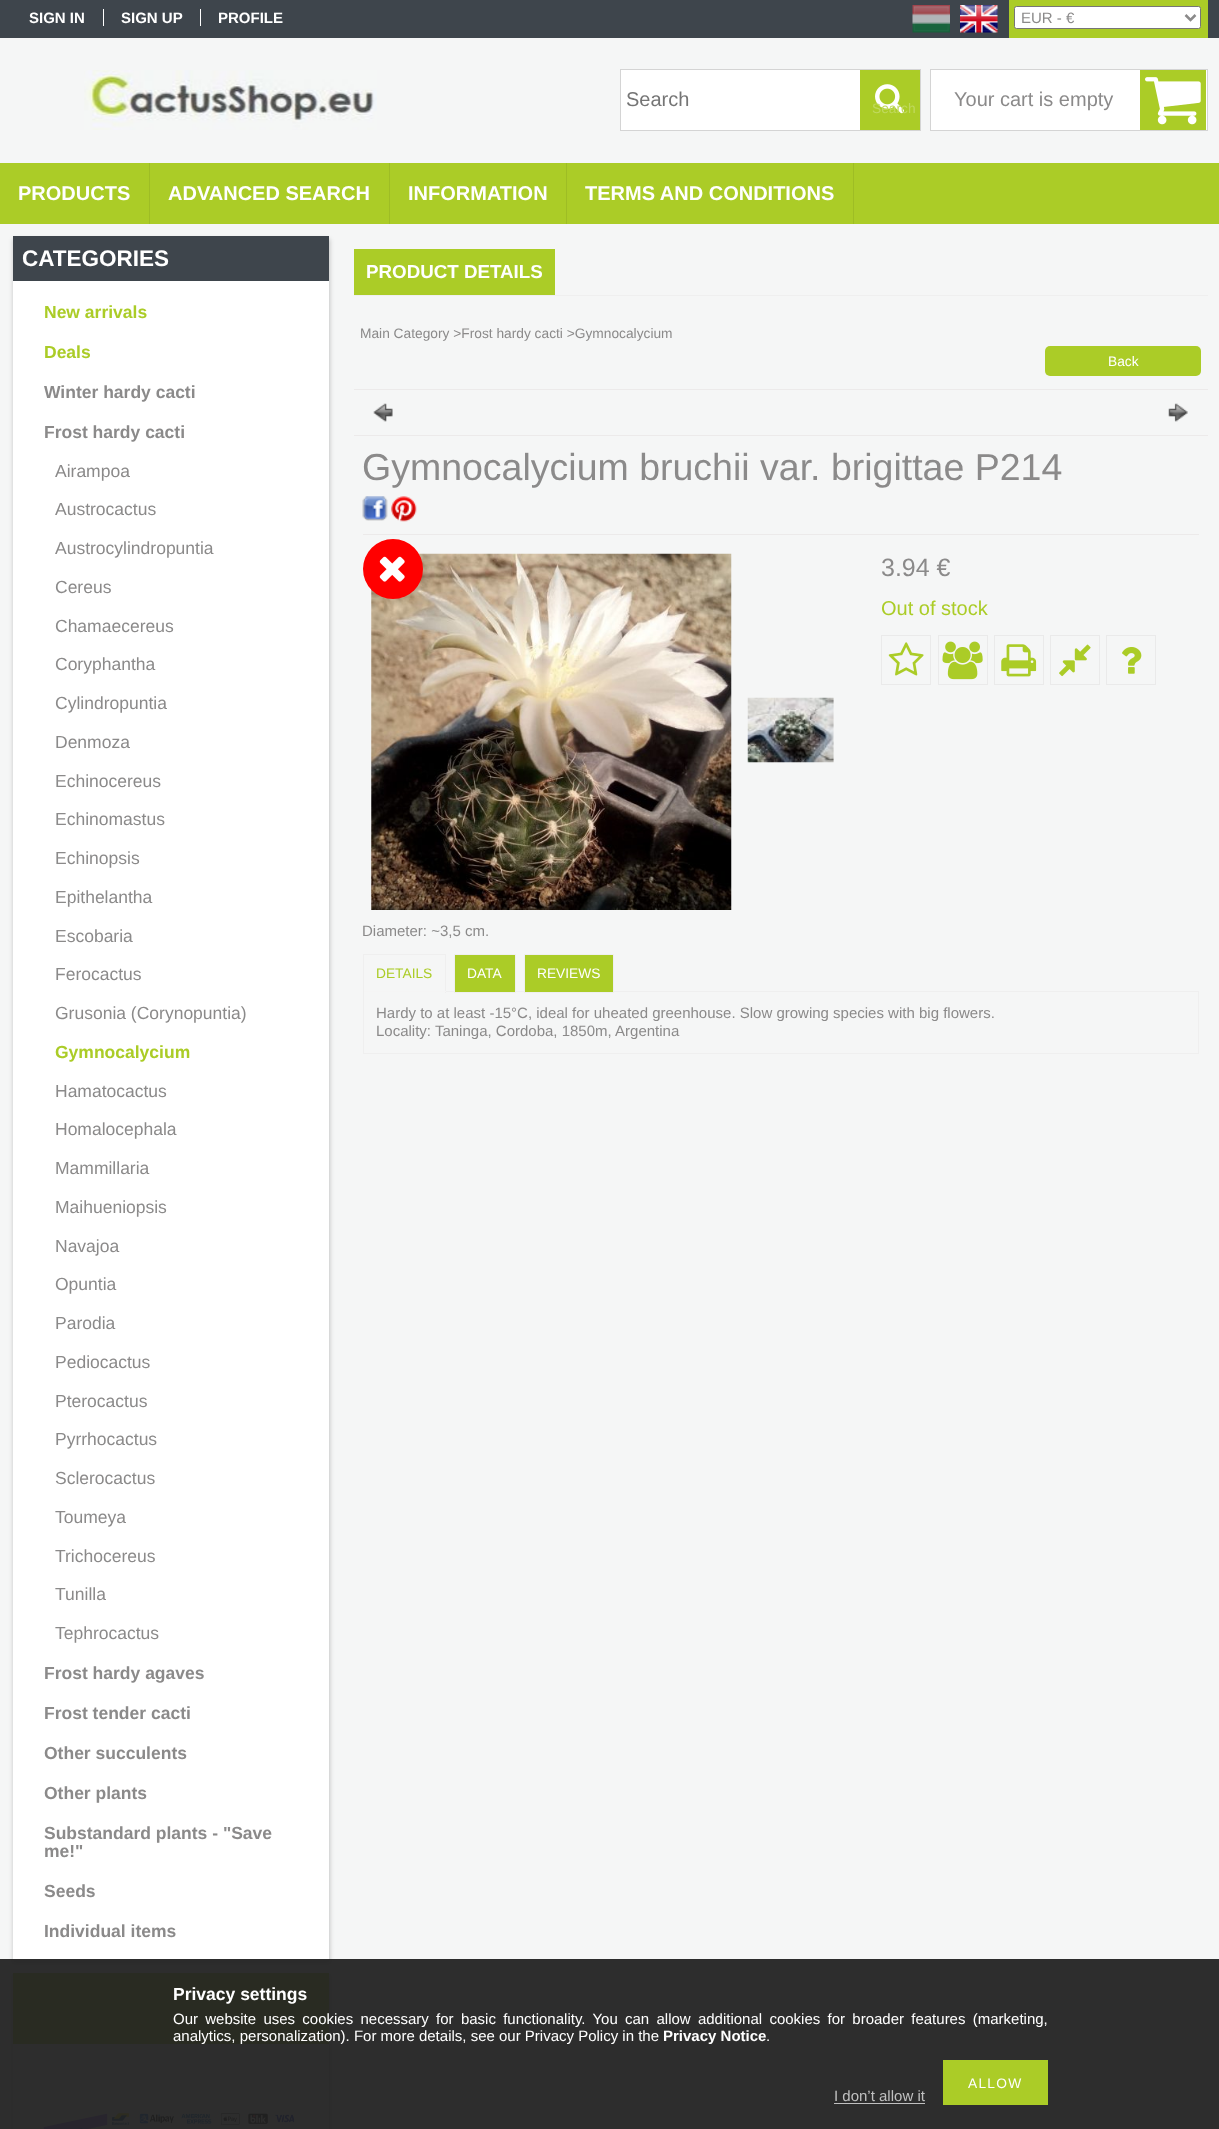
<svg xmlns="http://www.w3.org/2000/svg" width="1219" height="2129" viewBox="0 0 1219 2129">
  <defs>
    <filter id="blur1" x="-50%" y="-200%" width="200%" height="500%"><feGaussianBlur stdDeviation="2"/></filter>
  </defs>
  <rect width="100%" height="100%" fill="#f5f6f6"/>
  <rect x="0" y="0" width="1219" height="38" fill="#3e454c"/>
  <text x="29" y="23" font-family="Liberation Sans" font-size="15" font-weight="bold" fill="#ffffff">SIGN IN</text>
  <rect x="103" y="9" width="1" height="17" fill="#ffffff"/>
  <text x="121" y="23" font-family="Liberation Sans" font-size="15" font-weight="bold" fill="#ffffff">SIGN UP</text>
  <rect x="200" y="9" width="1" height="17" fill="#ffffff"/>
  <text x="218" y="23" font-family="Liberation Sans" font-size="15" font-weight="bold" fill="#ffffff">PROFILE</text>
  <image x="912" y="5" width="38" height="28" href="img1.png"/>
  <image x="960" y="5" width="38" height="28" href="img2.png"/>
  <rect x="1009" y="0" width="199" height="38" fill="#abcc27"/>
  <rect x="1014.5" y="6.5" width="186" height="22" rx="2" fill="#ffffff" stroke="#767676"/>
  <path d="M1185.5 15L1190.5 20L1195.5 15" fill="none" stroke="#8b8a8a" stroke-width="2.5"/>
  <text x="1021" y="23" font-family="Liberation Sans" font-size="15" fill="#8b8a8a">EUR - €</text>
  <image x="84" y="70" width="293" height="60" href="img3.png"/>
  <rect x="621" y="70" width="239" height="60" fill="#ffffff"/>
  <rect x="620.5" y="69.5" width="300" height="61" fill="none" stroke="#d4d4d4"/>
  <text x="626" y="106" font-family="Liberation Sans" font-size="20" fill="#757575">Search</text>
  <rect x="860" y="70" width="60" height="60" fill="#abcc27"/>
  <image x="875" y="84" width="29" height="30" href="img4.png"/>
  <text x="872" y="113" font-family="Liberation Sans" font-size="13.75" fill="#c0d95e">Search</text>
  <rect x="930.5" y="69.5" width="277" height="61" fill="#ffffff" stroke="#d4d4d4"/>
  <text x="954" y="106" font-family="Liberation Sans" font-size="20" fill="#8b8a8a">Your cart is empty</text>
  <rect x="1140" y="70" width="66" height="60" fill="#abcc27"/>
  <image x="1145" y="77" width="56" height="48" href="img5.png"/>
  <rect x="0" y="163" width="1219" height="61" fill="#abcc27"/>
  <rect x="149" y="163" width="1" height="61" fill="#000000" fill-opacity="0.07"/>
  <text x="18" y="200" font-family="Liberation Sans" font-size="20" font-weight="bold" fill="#ffffff">PRODUCTS</text>
  <rect x="389" y="163" width="1" height="61" fill="#000000" fill-opacity="0.07"/>
  <text x="168" y="200" font-family="Liberation Sans" font-size="20" font-weight="bold" fill="#ffffff">ADVANCED SEARCH</text>
  <rect x="566" y="163" width="1" height="61" fill="#000000" fill-opacity="0.07"/>
  <text x="408" y="200" font-family="Liberation Sans" font-size="20" font-weight="bold" fill="#ffffff">INFORMATION</text>
  <rect x="853" y="163" width="1" height="61" fill="#000000" fill-opacity="0.07"/>
  <text x="585" y="200" font-family="Liberation Sans" font-size="20" font-weight="bold" fill="#ffffff">TERMS AND CONDITIONS</text>
  <rect x="13" y="239" width="317" height="1724" fill="#000000" fill-opacity="0.2" filter="url(#blur1)"/>
  <rect x="13" y="236" width="316" height="45" fill="#3e454c"/>
  <text x="22" y="266" font-family="Liberation Sans" font-size="22.5" font-weight="bold" fill="#ffffff">CATEGORIES</text>
  <rect x="13" y="281" width="316" height="1679" fill="#ffffff"/>
  <text x="44" y="318" font-family="Liberation Sans" font-size="17.5" font-weight="bold" fill="#abcc27">New arrivals</text>
  <text x="44" y="358" font-family="Liberation Sans" font-size="17.5" font-weight="bold" fill="#abcc27">Deals</text>
  <text x="44" y="398" font-family="Liberation Sans" font-size="17.5" font-weight="bold" fill="#8b8a8a">Winter hardy cacti</text>
  <text x="44" y="438" font-family="Liberation Sans" font-size="17.5" font-weight="bold" fill="#8b8a8a">Frost hardy cacti</text>
  <text x="55" y="477" font-family="Liberation Sans" font-size="17.5" fill="#8b8a8a">Airampoa</text>
  <text x="55" y="515" font-family="Liberation Sans" font-size="17.5" fill="#8b8a8a">Austrocactus</text>
  <text x="55" y="554" font-family="Liberation Sans" font-size="17.5" fill="#8b8a8a">Austrocylindropuntia</text>
  <text x="55" y="593" font-family="Liberation Sans" font-size="17.5" fill="#8b8a8a">Cereus</text>
  <text x="55" y="632" font-family="Liberation Sans" font-size="17.5" fill="#8b8a8a">Chamaecereus</text>
  <text x="55" y="670" font-family="Liberation Sans" font-size="17.5" fill="#8b8a8a">Coryphantha</text>
  <text x="55" y="709" font-family="Liberation Sans" font-size="17.5" fill="#8b8a8a">Cylindropuntia</text>
  <text x="55" y="748" font-family="Liberation Sans" font-size="17.5" fill="#8b8a8a">Denmoza</text>
  <text x="55" y="787" font-family="Liberation Sans" font-size="17.5" fill="#8b8a8a">Echinocereus</text>
  <text x="55" y="825" font-family="Liberation Sans" font-size="17.5" fill="#8b8a8a">Echinomastus</text>
  <text x="55" y="864" font-family="Liberation Sans" font-size="17.5" fill="#8b8a8a">Echinopsis</text>
  <text x="55" y="903" font-family="Liberation Sans" font-size="17.5" fill="#8b8a8a">Epithelantha</text>
  <text x="55" y="942" font-family="Liberation Sans" font-size="17.5" fill="#8b8a8a">Escobaria</text>
  <text x="55" y="980" font-family="Liberation Sans" font-size="17.5" fill="#8b8a8a">Ferocactus</text>
  <text x="55" y="1019" font-family="Liberation Sans" font-size="17.5" fill="#8b8a8a">Grusonia (Corynopuntia)</text>
  <text x="55" y="1058" font-family="Liberation Sans" font-size="17.5" font-weight="bold" fill="#abcc27">Gymnocalycium</text>
  <text x="55" y="1097" font-family="Liberation Sans" font-size="17.5" fill="#8b8a8a">Hamatocactus</text>
  <text x="55" y="1135" font-family="Liberation Sans" font-size="17.5" fill="#8b8a8a">Homalocephala</text>
  <text x="55" y="1174" font-family="Liberation Sans" font-size="17.5" fill="#8b8a8a">Mammillaria</text>
  <text x="55" y="1213" font-family="Liberation Sans" font-size="17.5" fill="#8b8a8a">Maihueniopsis</text>
  <text x="55" y="1252" font-family="Liberation Sans" font-size="17.5" fill="#8b8a8a">Navajoa</text>
  <text x="55" y="1290" font-family="Liberation Sans" font-size="17.5" fill="#8b8a8a">Opuntia</text>
  <text x="55" y="1329" font-family="Liberation Sans" font-size="17.5" fill="#8b8a8a">Parodia</text>
  <text x="55" y="1368" font-family="Liberation Sans" font-size="17.5" fill="#8b8a8a">Pediocactus</text>
  <text x="55" y="1407" font-family="Liberation Sans" font-size="17.5" fill="#8b8a8a">Pterocactus</text>
  <text x="55" y="1445" font-family="Liberation Sans" font-size="17.5" fill="#8b8a8a">Pyrrhocactus</text>
  <text x="55" y="1484" font-family="Liberation Sans" font-size="17.5" fill="#8b8a8a">Sclerocactus</text>
  <text x="55" y="1523" font-family="Liberation Sans" font-size="17.5" fill="#8b8a8a">Toumeya</text>
  <text x="55" y="1562" font-family="Liberation Sans" font-size="17.5" fill="#8b8a8a">Trichocereus</text>
  <text x="55" y="1600" font-family="Liberation Sans" font-size="17.5" fill="#8b8a8a">Tunilla</text>
  <text x="55" y="1639" font-family="Liberation Sans" font-size="17.5" fill="#8b8a8a">Tephrocactus</text>
  <text x="44" y="1679" font-family="Liberation Sans" font-size="17.5" font-weight="bold" fill="#8b8a8a">Frost hardy agaves</text>
  <text x="44" y="1719" font-family="Liberation Sans" font-size="17.5" font-weight="bold" fill="#8b8a8a">Frost tender cacti</text>
  <text x="44" y="1759" font-family="Liberation Sans" font-size="17.5" font-weight="bold" fill="#8b8a8a">Other succulents</text>
  <text x="44" y="1799" font-family="Liberation Sans" font-size="17.5" font-weight="bold" fill="#8b8a8a">Other plants</text>
  <text x="44" y="1839" font-family="Liberation Sans" font-size="17.5" font-weight="bold" fill="#8b8a8a">Substandard plants - "Save</text>
  <text x="44" y="1857" font-family="Liberation Sans" font-size="17.5" font-weight="bold" fill="#8b8a8a">me!"</text>
  <text x="44" y="1897" font-family="Liberation Sans" font-size="17.5" font-weight="bold" fill="#8b8a8a">Seeds</text>
  <text x="44" y="1937" font-family="Liberation Sans" font-size="17.5" font-weight="bold" fill="#8b8a8a">Individual items</text>
  <rect x="13" y="1975" width="317" height="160" fill="#000000" fill-opacity="0.2" filter="url(#blur1)"/>
  <rect x="13" y="1973" width="316" height="71" fill="#abcc27"/>
  <rect x="13" y="2044" width="316" height="85" fill="#ffffff"/>
  <image x="43" y="2107" width="256" height="22" href="img6.png"/>
  <rect x="354" y="295" width="854" height="1" fill="#efefef"/>
  <rect x="354" y="249" width="201" height="46" fill="#abcc27"/>
  <text x="366" y="278" font-family="Liberation Sans" font-size="18.75" font-weight="bold" fill="#ffffff">PRODUCT DETAILS</text>
  <text x="360" y="338" font-family="Liberation Sans" font-size="13.75" fill="#8b8a8a">Main Category &gt;Frost hardy cacti &gt;Gymnocalycium</text>
  <rect x="1045" y="346" width="156" height="30" rx="5" fill="#abcc27"/>
  <text x="1108" y="366" font-family="Liberation Sans" font-size="13.75" fill="#ffffff">Back</text>
  <rect x="354" y="389" width="854" height="1" fill="#eceaea"/>
  <image x="373" y="403" width="20" height="19" href="img7.png"/>
  <image x="1168" y="403" width="20" height="19" href="img8.png"/>
  <rect x="354" y="435" width="854" height="1" fill="#eceaea"/>
  <rect x="363" y="534" width="836" height="1" fill="#eceaea"/>
  <text x="362" y="480" font-family="Liberation Sans" font-size="37.5" fill="#8b8a8a">Gymnocalycium bruchii var. brigittae P214</text>
  <image x="362" y="496" width="26" height="25" href="img9.png"/>
  <image x="391" y="496" width="26" height="26" href="img10.png"/>
  <image x="371" y="553" width="361" height="357" href="img12.png"/>
  <circle cx="393" cy="569" r="30" fill="#ff0000"/>
  <image x="379" y="556" width="26" height="26" href="img11.png"/>
  <image x="747" y="697" width="87" height="66" href="img13.png"/>
  <text x="881" y="576" font-family="Liberation Sans" font-size="25" fill="#8b8a8a">3.94 €</text>
  <text x="881" y="615" font-family="Liberation Sans" font-size="20" fill="#abcc27">Out of stock</text>
  <rect x="881.5" y="635.5" width="49" height="49" fill="none" stroke="#eaeaea"/>
  <image x="888" y="642" width="36" height="34" href="img14.png"/>
  <rect x="938.5" y="635.5" width="49" height="49" fill="none" stroke="#eaeaea"/>
  <image x="942" y="641" width="41" height="39" href="img15.png"/>
  <rect x="994.5" y="635.5" width="49" height="49" fill="none" stroke="#eaeaea"/>
  <image x="1001" y="644" width="36" height="33" href="img16.png"/>
  <rect x="1050.5" y="635.5" width="49" height="49" fill="none" stroke="#eaeaea"/>
  <image x="1059" y="644" width="32" height="33" href="img17.png"/>
  <rect x="1106.5" y="635.5" width="49" height="49" fill="none" stroke="#eaeaea"/>
  <image x="1122" y="647" width="20" height="27" href="img18.png"/>
  <text x="362" y="936" font-family="Liberation Sans" font-size="15" fill="#8b8a8a">Diameter: ~3,5 cm.</text>
  <rect x="363.5" y="991.5" width="835" height="62" fill="none" stroke="#efefef"/>
  <rect x="364" y="991" width="81" height="1" fill="#f5f5f5"/>
  <rect x="363" y="954" width="83" height="1" fill="#efefef"/>
  <rect x="445" y="954" width="1" height="39" fill="#efefef"/>
  <rect x="363" y="991" width="83" height="1" fill="#f5f5f5"/>
  <rect x="363" y="954" width="1" height="39" fill="#efefef"/>
  <text x="376" y="978" font-family="Liberation Sans" font-size="13.75" fill="#abcc27">DETAILS</text>
  <rect x="454.5" y="954.5" width="61" height="38" fill="#abcc27" stroke="#efefef"/>
  <text x="467" y="978" font-family="Liberation Sans" font-size="13.75" fill="#ffffff">DATA</text>
  <rect x="524.5" y="954.5" width="89" height="38" fill="#abcc27" stroke="#efefef"/>
  <text x="537" y="978" font-family="Liberation Sans" font-size="13.75" fill="#ffffff">REVIEWS</text>
  <text x="376" y="1018" font-family="Liberation Sans" font-size="15" fill="#8b8a8a">Hardy to at least -15°C, ideal for uheated greenhouse. Slow growing species with big flowers.</text>
  <text x="376" y="1036" font-family="Liberation Sans" font-size="15" fill="#8b8a8a">Locality: Taninga, Cordoba, 1850m, Argentina</text>
  <rect x="0" y="1959" width="1219" height="170" fill="#222222" fill-opacity="0.95"/>
  <text x="173" y="2000" font-family="Liberation Sans" font-size="17.5" font-weight="bold" fill="#ffffff">Privacy settings</text>
  <text x="173" y="2024" word-spacing="3.1" font-family="Liberation Sans" font-size="15" fill="#ffffff">Our website uses cookies necessary for basic functionality. You can allow additional cookies for broader features (marketing,</text>
  <text x="173" y="2041" font-family="Liberation Sans" font-size="15" fill="#ffffff">analytics, personalization). For more details, see our Privacy Policy in the</text>
  <text x="663" y="2041" font-family="Liberation Sans" font-size="15" font-weight="bold" fill="#ffffff">Privacy Notice</text>
  <text x="766" y="2041" font-family="Liberation Sans" font-size="15" fill="#ffffff">.</text>
  <rect x="943" y="2060" width="105" height="45" fill="#abcc27"/>
  <text x="968" y="2088" font-family="Liberation Sans" font-size="13.75" letter-spacing="1.25" fill="#ffffff">ALLOW</text>
  <text x="834" y="2101" font-family="Liberation Sans" font-size="15" fill="#c0c0c0">I don’t allow it</text>
  <rect x="834" y="2103" width="91" height="1" fill="#c0c0c0"/>
</svg>
